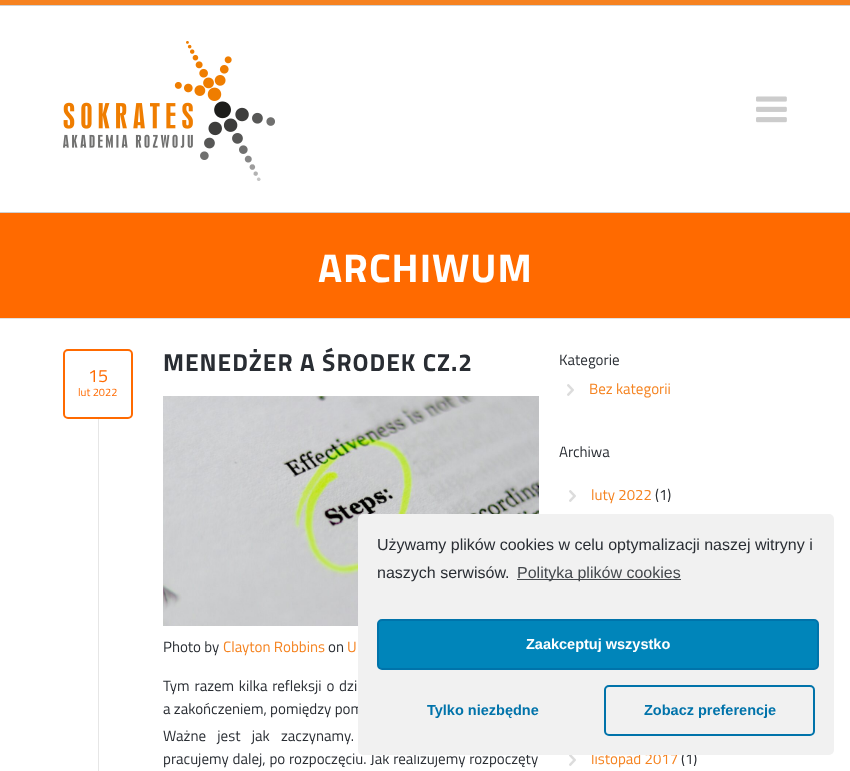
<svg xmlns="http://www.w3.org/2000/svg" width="850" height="771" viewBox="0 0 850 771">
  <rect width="100%" height="100%" fill="#ffffff"/>
  <rect x="0" y="0" width="850" height="5" fill="#f68220"/>
  <rect x="0" y="5" width="850" height="1" fill="#d0d0d0"/>
  <rect x="0" y="212" width="850" height="1" fill="#d0d0d0"/>
  <image x="63" y="41" width="212" height="140" href="img1.png"/>
  <image x="756" y="96" width="31" height="27" href="img2.png"/>
  <rect x="0" y="213" width="850" height="105" fill="#ff6a00"/>
  <rect x="0" y="318" width="850" height="1" fill="#e2e2e2"/>
  <text x="318" y="282" font-family="Titillium Web" font-size="40" font-weight="bold" letter-spacing="1" fill="#ffffff">ARCHIWUM</text>
  <text x="163" y="371" font-family="Titillium Web" font-size="24.5" font-weight="bold" letter-spacing="1" fill="#292d33">MENEDŻER A ŚRODEK CZ.2</text>
  <rect x="64" y="350" width="68" height="68" rx="4" fill="none" stroke="#ff6a00" stroke-width="2"/>
  <text x="88" y="382" font-family="Titillium Web" font-size="18" fill="#ff6a00">15</text>
  <text x="78" y="396" font-family="Titillium Web" font-size="11" fill="#ff6a00">lut 2022</text>
  <rect x="98" y="419" width="1" height="352" fill="#e6e6e6"/>
  <image x="163" y="396" width="376" height="230" href="img3.png"/>
  <text x="163" y="652" font-family="Titillium Web" font-size="15" fill="#292d33">Photo by</text>
  <text x="223" y="652" font-family="Titillium Web" font-size="15" fill="#f58320">Clayton Robbins</text>
  <text x="328" y="652" font-family="Titillium Web" font-size="15" fill="#292d33">on</text>
  <text x="347" y="652" font-family="Titillium Web" font-size="15" fill="#f58320">U</text>
  <text x="163" y="691" word-spacing="1.5" font-family="Titillium Web" font-size="15" fill="#292d33">Tym razem kilka refleksji o dzi</text>
  <text x="163" y="714" font-family="Titillium Web" font-size="15" fill="#292d33">a zakończeniem, pomiędzy pom</text>
  <text x="163" y="741" word-spacing="8" font-family="Titillium Web" font-size="15" fill="#292d33">Ważne jest jak zaczynamy.</text>
  <text x="163" y="764" word-spacing="0.5" font-family="Titillium Web" font-size="15" fill="#292d33">pracujemy dalej, po rozpoczęciu. Jak realizujemy rozpoczęty</text>
  <text x="559" y="365" font-family="Titillium Web" font-size="15" fill="#292d33">Kategorie</text>
  <image x="567" y="384" width="7" height="12" href="img4.png"/>
  <text x="589" y="394" font-family="Titillium Web" font-size="15" fill="#f58320">Bez kategorii</text>
  <text x="559" y="457" font-family="Titillium Web" font-size="15" fill="#292d33">Archiwa</text>
  <image x="569" y="490" width="7" height="12" href="img4.png"/>
  <text x="591" y="500" font-family="Titillium Web" font-size="15" fill="#f58320">luty 2022</text>
  <text x="655" y="500" font-family="Titillium Web" font-size="15" fill="#292d33">(1)</text>
  <image x="569" y="755" width="7" height="11" href="img5.png"/>
  <text x="591" y="764" font-family="Titillium Web" font-size="15" fill="#f58320">listopad 2017</text>
  <text x="681" y="764" font-family="Titillium Web" font-size="15" fill="#292d33">(1)</text>
  <rect x="358" y="514" width="476" height="241" rx="5" fill="#f1f1f1"/>
  <text x="377" y="550" font-family="Liberation Sans" font-size="16" fill="#292d33">Używamy plików cookies w celu optymalizacji naszej witryny i</text>
  <text x="377" y="578" font-family="Liberation Sans" font-size="16" fill="#292d33">naszych serwisów.</text>
  <rect x="517" y="579" width="164" height="1" fill="#44484c"/>
  <text x="517" y="578" font-family="Liberation Sans" font-size="16" fill="#44484c">Polityka plików cookies</text>
  <rect x="378" y="620" width="440" height="49" rx="4" fill="#0085ba" stroke="#0073aa" stroke-width="2"/>
  <text x="526" y="649" font-family="Liberation Sans" font-size="14.5" font-weight="bold" fill="#ffffff">Zaakceptuj wszystko</text>
  <text x="427" y="715" font-family="Liberation Sans" font-size="14.5" font-weight="bold" fill="#0073aa">Tylko niezbędne</text>
  <rect x="605" y="686" width="209" height="49" rx="4" fill="none" stroke="#0073aa" stroke-width="2"/>
  <text x="644" y="715" font-family="Liberation Sans" font-size="14.5" font-weight="bold" fill="#0073aa">Zobacz preferencje</text>
</svg>
